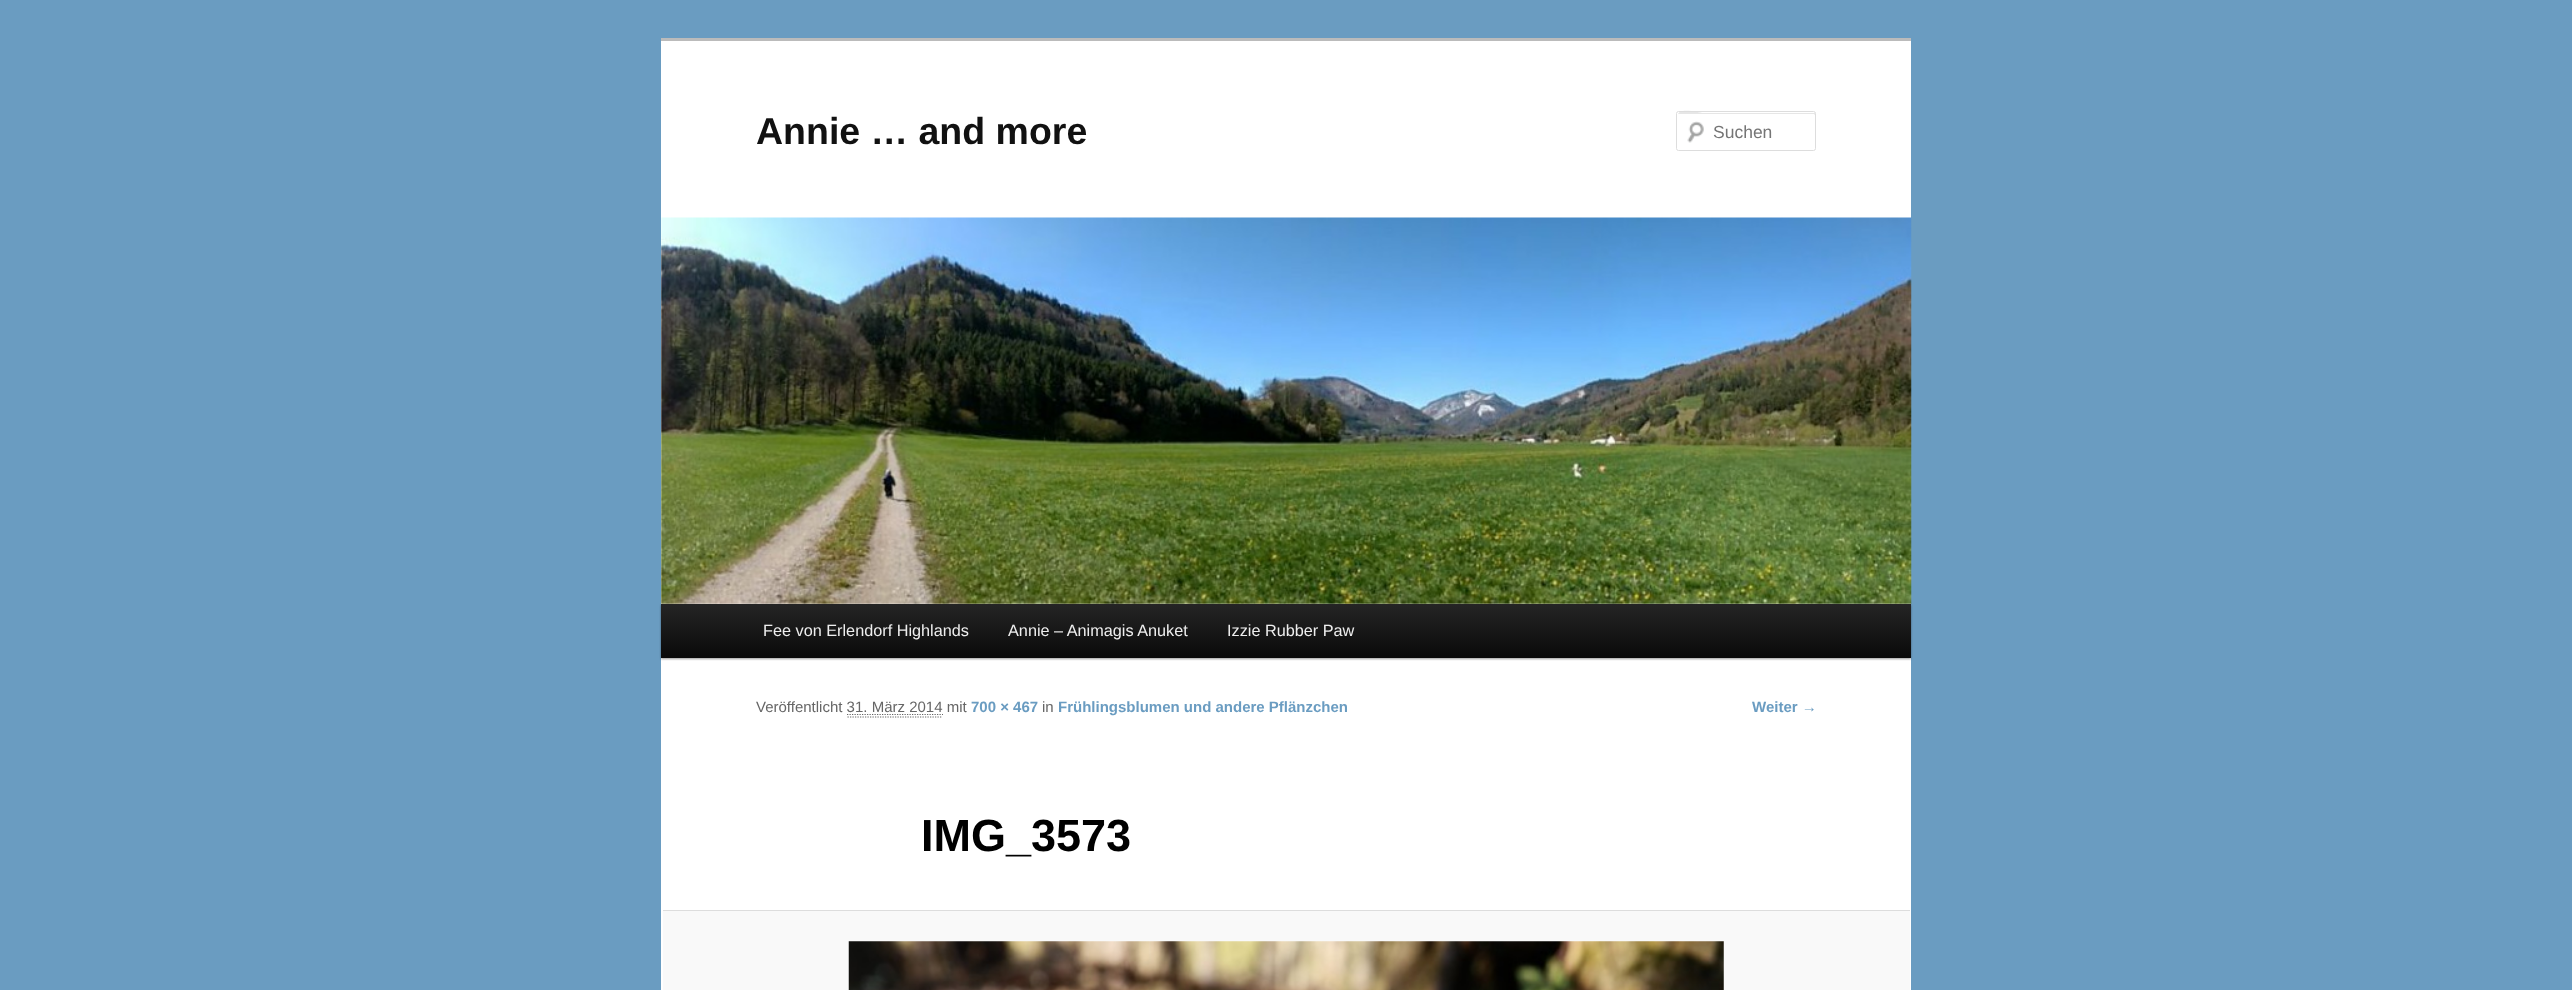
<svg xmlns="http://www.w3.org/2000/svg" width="2572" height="990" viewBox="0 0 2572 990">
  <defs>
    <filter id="blur1" x="-50%" y="-200%" width="200%" height="500%"><feGaussianBlur stdDeviation="1"/></filter>
    <linearGradient id="g1" gradientUnits="userSpaceOnUse" x1="1286" y1="604" x2="1286" y2="658"><stop offset="0" stop-color="#252525"/><stop offset="1" stop-color="#0a0a0a"/></linearGradient>
  </defs>
  <rect width="100%" height="100%" fill="#6a9cc1"/>
  <rect x="661" y="41" width="1250" height="949" fill="#ffffff"/>
  <rect x="661" y="38" width="1250" height="3" fill="#bbbbbb"/>
  <text x="756" y="144" font-family="Liberation Sans" font-size="37.5" font-weight="bold" fill="#111111">Annie … and more</text>
  <image x="1687" y="121" width="17" height="22" href="img1.png"/>
  <path d="M1679 114H1814L1815 115V113H1702C1701 113 1678 107 1678 115C1678 114 1678 114 1679 114Z" fill="#e6e6e6"/>
  <rect x="1676.5" y="111.5" width="139" height="39" rx="2" fill="none" stroke="#dddddd"/>
  <text x="1713" y="138" font-family="Liberation Sans" font-size="17.5" fill="#757575">Suchen</text>
  <rect x="661" y="605" width="1250" height="54" fill="#000000" fill-opacity="0.4" filter="url(#blur1)"/>
  <image x="661" y="217" width="1251" height="387" href="img2.png"/>
  <rect x="661" y="604" width="1250" height="54" fill="url(#g1)"/>
  <text x="763" y="636" font-family="Liberation Sans" font-size="16.25" fill="#eeeeee">Fee von Erlendorf Highlands</text>
  <text x="1008" y="636" font-family="Liberation Sans" font-size="16.25" fill="#eeeeee">Annie – Animagis Anuket</text>
  <text x="1227" y="636" font-family="Liberation Sans" font-size="16.25" fill="#eeeeee">Izzie Rubber Paw</text>
  <text x="756" y="712" font-family="Liberation Sans" font-size="15" fill="#666666">Veröffentlicht 31. März 2014 mit</text>
  <text x="971" y="712" font-family="Liberation Sans" font-size="15" font-weight="bold" fill="#6a9cc1">700 × 467</text>
  <text x="1042" y="712" font-family="Liberation Sans" font-size="15" fill="#666666">in</text>
  <text x="1058" y="712" font-family="Liberation Sans" font-size="15" font-weight="bold" fill="#6a9cc1">Frühlingsblumen und andere Pflänzchen</text>
  <path d="M847 714.5H943" fill="none" stroke="#666666" stroke-width="1.2" stroke-dasharray="1.25 1.25"/>
  <path d="M847.5 717H942.5" fill="none" stroke="#666666" stroke-width="1.2" stroke-dasharray="1.25 1.25"/>
  <text x="921" y="851" font-family="Liberation Sans" font-size="45" font-weight="bold" fill="#000000">IMG_3573</text>
  <rect x="663" y="911" width="1247" height="79" fill="#f9f9f9"/>
  <rect x="663" y="910" width="1247" height="1" fill="#dddddd"/>
  <image x="848" y="941" width="876" height="49" href="img3.png"/>
  <text x="1752" y="712" font-family="Liberation Sans" font-size="15" font-weight="bold" fill="#6a9cc1">Weiter →</text>
</svg>
